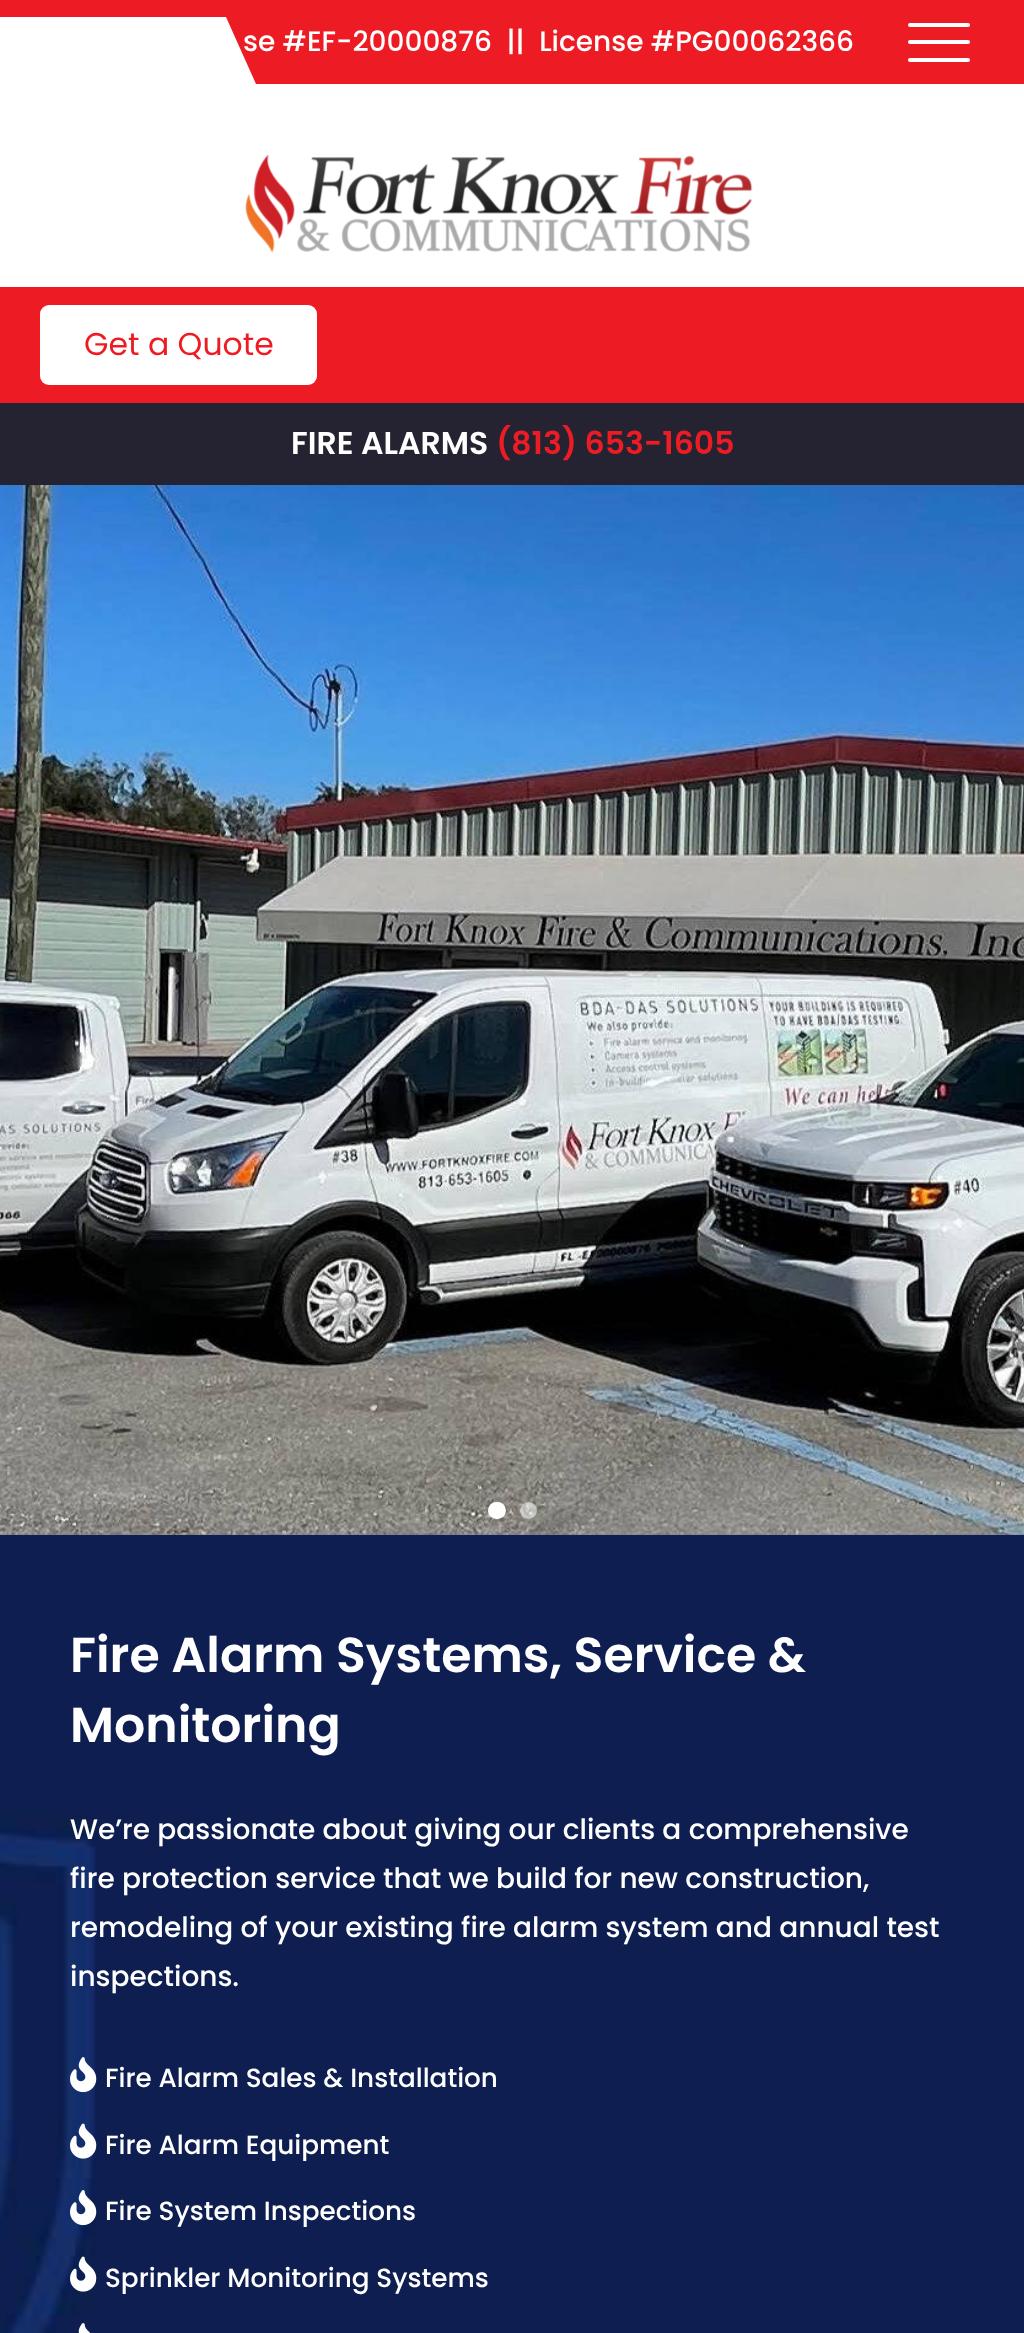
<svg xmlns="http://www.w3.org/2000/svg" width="1024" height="2333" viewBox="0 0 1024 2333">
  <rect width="100%" height="100%" fill="#ffffff"/>
  <path d="M0 0V17H226L256 84H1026V0Z" fill="#ed1c24"/>
  <text x="243" y="51" font-family="Poppins" font-size="28" font-weight="500" fill="#ffffff" xml:space="preserve">se #EF-20000876  ||  License #PG00062366</text>
  <image x="245" y="154" width="508" height="99" href="img1.png"/>
  <rect x="0" y="403" width="1024" height="82" fill="#252331"/>
  <path d="M238 402H793L746 484H190Z" fill="#252331"/>
  <rect x="0" y="287" width="1024" height="116" fill="#ed1c24"/>
  <rect x="908" y="23" width="62" height="4" rx="2" fill="#ffffff"/>
  <rect x="908" y="40" width="62" height="4" rx="2" fill="#ffffff"/>
  <rect x="908" y="58" width="62" height="4" rx="2" fill="#ffffff"/>
  <rect x="40" y="305" width="277" height="80" rx="9" fill="#ffffff"/>
  <text x="84" y="355" font-family="Poppins" font-size="31.5" fill="#ed1c24">Get a Quote</text>
  <image x="770" y="437" width="1" height="5" href="img2.png"/>
  <text x="291" y="454" font-family="Poppins" font-size="31.5" font-weight="600" fill="#ffffff">FIRE ALARMS</text>
  <text x="496" y="454" font-family="Poppins" font-size="31.5" font-weight="600" fill="#ed1c24">(813) 653-1605</text>
  <image x="0" y="485" width="1024" height="1050" href="img3.png"/>
  <rect x="488" y="1502" width="18" height="17" rx="8.5" fill="#ffffff"/>
  <circle cx="528.5" cy="1510.5" r="8.5" fill="#ffffff" fill-opacity="0.5"/>
  <image x="0" y="1534" width="1024" height="799" href="img4.png"/>
  <text x="70" y="1672" font-family="Poppins" font-size="49" font-weight="600" fill="#ffffff">Fire Alarm Systems, Service &amp;</text>
  <text x="70" y="1742" font-family="Poppins" font-size="49" font-weight="600" fill="#ffffff">Monitoring</text>
  <text x="70" y="1839" font-family="Poppins" font-size="28" font-weight="500" fill="#ffffff">We’re passionate about giving our clients a comprehensive</text>
  <text x="70" y="1888" font-family="Poppins" font-size="28" font-weight="500" fill="#ffffff">fire protection service that we build for new construction,</text>
  <text x="70" y="1937" font-family="Poppins" font-size="28" font-weight="500" fill="#ffffff">remodeling of your existing fire alarm system and annual test</text>
  <text x="70" y="1986" font-family="Poppins" font-size="28" font-weight="500" fill="#ffffff">inspections.</text>
  <image x="70" y="2057" width="27" height="36" href="img5.png"/>
  <text x="105" y="2087" font-family="Poppins" font-size="26.25" font-weight="500" fill="#ffffff">Fire Alarm Sales &amp; Installation</text>
  <image x="70" y="2123" width="27" height="36" href="img6.png"/>
  <text x="105" y="2154" font-family="Poppins" font-size="26.25" font-weight="500" fill="#ffffff">Fire Alarm Equipment</text>
  <image x="70" y="2190" width="27" height="36" href="img7.png"/>
  <text x="105" y="2220" font-family="Poppins" font-size="26.25" font-weight="500" fill="#ffffff">Fire System Inspections</text>
  <image x="70" y="2256" width="27" height="36" href="img8.png"/>
  <text x="105" y="2287" font-family="Poppins" font-size="26.25" font-weight="500" fill="#ffffff">Sprinkler Monitoring Systems</text>
  <image x="78" y="2323" width="13" height="10" href="img9.png"/>
</svg>
